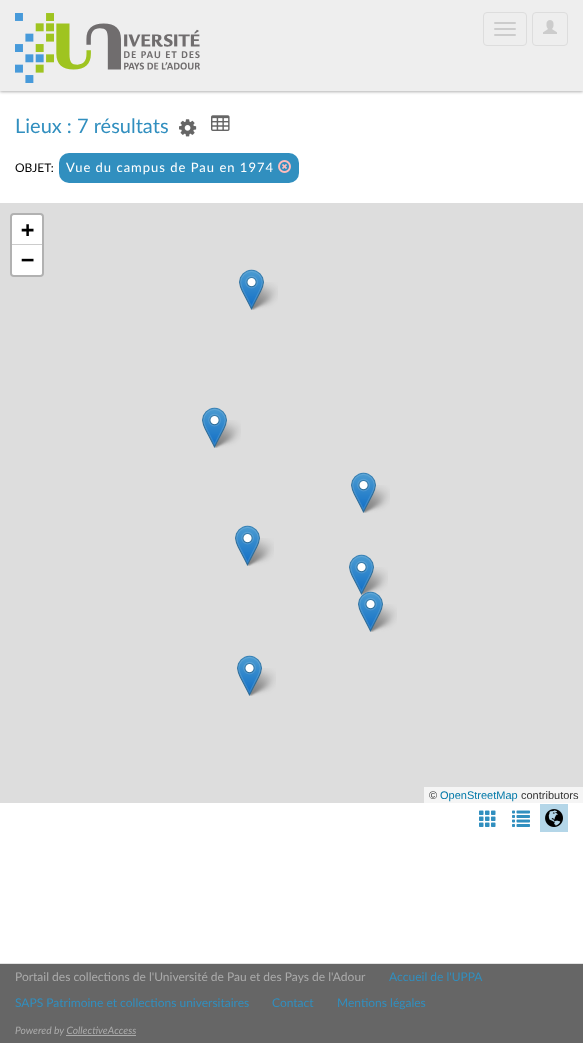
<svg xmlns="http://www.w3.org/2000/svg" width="583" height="1043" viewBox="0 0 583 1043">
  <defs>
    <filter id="blur1" x="-50%" y="-200%" width="200%" height="500%"><feGaussianBlur stdDeviation="1.5"/></filter>
  </defs>
  <rect width="100%" height="100%" fill="#ffffff"/>
  <rect x="0" y="1" width="583" height="91" fill="#000000" fill-opacity="0.3" filter="url(#blur1)"/>
  <rect x="0" y="0" width="583" height="91" fill="#eeeeee"/>
  <image x="15" y="13" width="185" height="70" href="img1.png"/>
  <rect x="483.5" y="12.5" width="43" height="33" rx="3.5" fill="none" stroke="#dddddd"/>
  <rect x="494" y="22" width="22" height="2" rx="1" fill="#cccccc"/>
  <rect x="494" y="28" width="22" height="2" rx="1" fill="#cccccc"/>
  <rect x="494" y="34" width="22" height="2" rx="1" fill="#cccccc"/>
  <rect x="532.5" y="12.5" width="35" height="33" rx="3.5" fill="none" stroke="#dddddd"/>
  <image x="543" y="20" width="14" height="14" href="img2.png"/>
  <text x="15" y="133" font-family="Lato" font-size="20" fill="#318fbf">Lieux : 7 résultats</text>
  <image x="179" y="119" width="18" height="18" href="img3.png"/>
  <image x="211" y="115" width="19" height="16" href="img4.png"/>
  <text x="15" y="172" font-family="Lato" font-size="12" fill="#000000">OBJET:</text>
  <rect x="59" y="153" width="240" height="30" rx="10" fill="#318fbf"/>
  <text x="66" y="172" font-family="Lato" font-size="13" letter-spacing="1" fill="#ffffff">Vue du campus de Pau en 1974</text>
  <image x="278" y="160" width="13" height="13" href="img5.png"/>
  <rect x="0" y="203" width="583" height="600" fill="#dddddd"/>
  <rect x="11" y="214" width="32" height="62" rx="3" fill="none" stroke="#b1b1b1" stroke-width="2"/>
  <path d="M14 215H40C41 215 42 216 42 217V245H12V217C12 216 13 215 14 215Z" fill="#ffffff"/>
  <rect x="12" y="244" width="30" height="1" fill="#cccccc"/>
  <text x="21" y="237" font-family="DejaVu Sans Mono" font-size="22" font-weight="bold" fill="#000000">+</text>
  <path d="M12 245H42V273C42 274 41 275 40 275H14C13 275 12 274 12 273Z" fill="#ffffff"/>
  <text x="21" y="267" font-family="DejaVu Sans Mono" font-size="22" font-weight="bold" fill="#000000">−</text>
  <rect x="424" y="787" width="159" height="16" fill="#f5f5f5"/>
  <text x="429" y="799" font-family="Liberation Sans" font-size="11" fill="#333333">©</text>
  <text x="440" y="799" font-family="Liberation Sans" font-size="11" fill="#0078a8">OpenStreetMap</text>
  <text x="521" y="799" font-family="Liberation Sans" font-size="11" fill="#333333">contributors</text>
  <image x="249" y="282" width="29" height="28" href="img8.png"/>
  <image x="239" y="269" width="25" height="41" href="img6.png"/>
  <image x="212" y="420" width="29" height="28" href="img8.png"/>
  <image x="202" y="407" width="25" height="41" href="img6.png"/>
  <image x="361" y="485" width="29" height="28" href="img8.png"/>
  <image x="351" y="472" width="25" height="41" href="img6.png"/>
  <image x="245" y="538" width="29" height="28" href="img8.png"/>
  <image x="235" y="525" width="25" height="41" href="img6.png"/>
  <image x="359" y="567" width="29" height="28" href="img8.png"/>
  <image x="349" y="554" width="25" height="41" href="img6.png"/>
  <image x="368" y="604" width="29" height="28" href="img8.png"/>
  <image x="358" y="591" width="25" height="41" href="img7.png"/>
  <image x="247" y="668" width="29" height="28" href="img8.png"/>
  <image x="237" y="655" width="25" height="41" href="img6.png"/>
  <image x="479" y="810" width="17" height="17" href="img9.png"/>
  <image x="512" y="810" width="18" height="17" href="img10.png"/>
  <rect x="540" y="804" width="28" height="28" fill="#b4d6e8"/>
  <image x="545" y="809" width="18" height="18" href="img11.png"/>
  <rect x="0" y="964" width="583" height="79" fill="#666666"/>
  <rect x="0" y="963" width="583" height="1" fill="#e3e3e3"/>
  <text x="15" y="981" font-family="Lato" font-size="12" fill="#ababab">Portail des collections de l'Université de Pau et des Pays de l'Adour</text>
  <text x="389" y="981" font-family="Lato" font-size="12" fill="#318fbf">Accueil de l'UPPA</text>
  <text x="15" y="1007" font-family="Lato" font-size="12" fill="#318fbf">SAPS Patrimoine et collections universitaires</text>
  <text x="272" y="1007" font-family="Lato" font-size="12" fill="#318fbf">Contact</text>
  <text x="337" y="1007" font-family="Lato" font-size="12" fill="#318fbf">Mentions légales</text>
  <text x="15" y="1034" font-family="Lato" font-size="10.25" font-style="italic" fill="#ababab">Powered by CollectiveAccess</text>
  <rect x="66" y="1035" width="70" height="1" fill="#ababab"/>
</svg>
